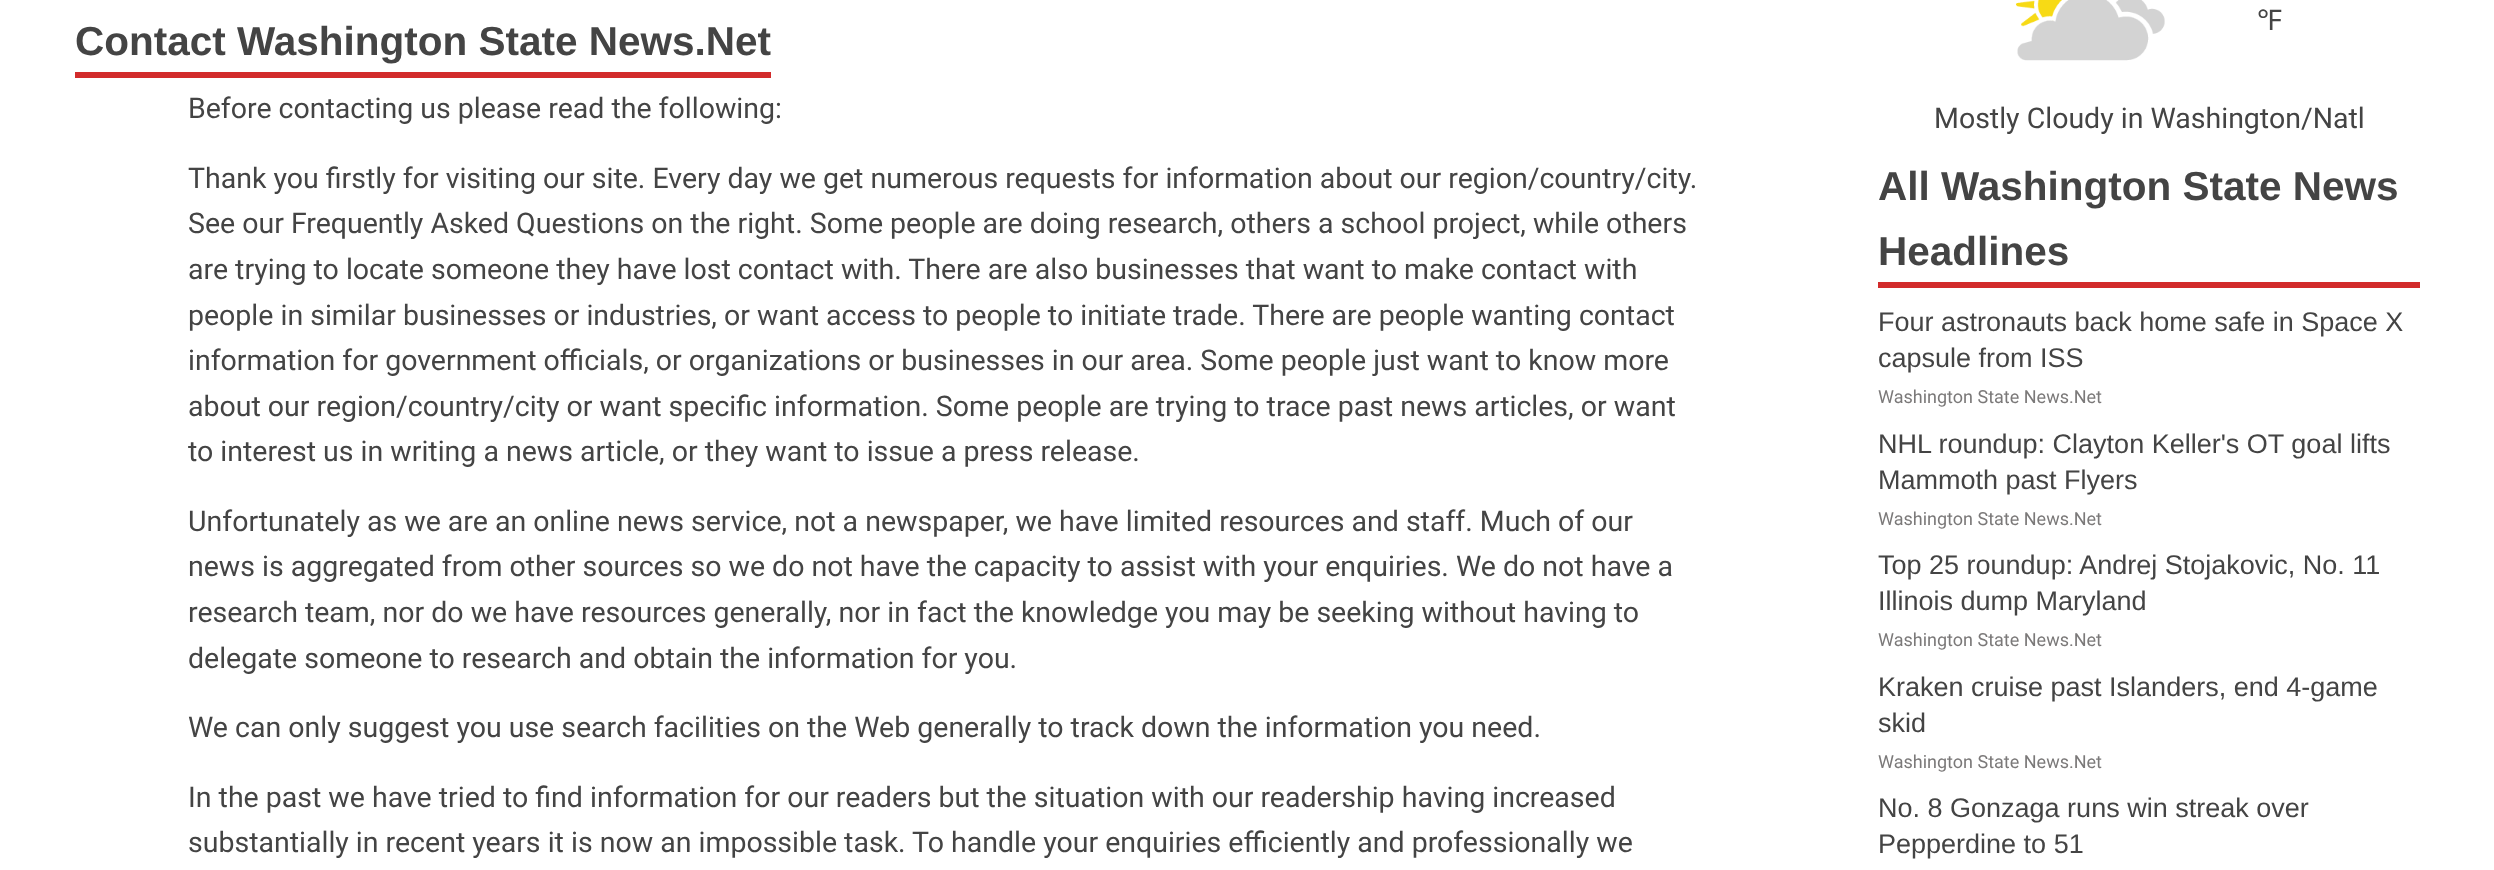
<svg xmlns="http://www.w3.org/2000/svg" width="2494" height="870" viewBox="0 0 2494 870">
  <rect width="100%" height="100%" fill="#ffffff"/>
  <text x="75" y="55" font-family="Liberation Sans" font-size="40.5" font-weight="bold" fill="#444444">Contact Washington State News.Net</text>
  <rect x="75" y="72" width="696" height="6" fill="#d22b2b"/>
  <text x="188" y="118" font-family="Roboto" font-size="28.5" fill="#444444">Before contacting us please read the following:</text>
  <text x="188" y="188" font-family="Roboto" font-size="28.5" fill="#444444">Thank you firstly for visiting our site. Every day we get numerous requests for information about our region/country/city.</text>
  <text x="188" y="233" font-family="Roboto" font-size="28.5" fill="#444444">See our Frequently Asked Questions on the right. Some people are doing research, others a school project, while others</text>
  <text x="188" y="279" font-family="Roboto" font-size="28.5" fill="#444444">are trying to locate someone they have lost contact with. There are also businesses that want to make contact with</text>
  <text x="188" y="325" font-family="Roboto" font-size="28.5" fill="#444444">people in similar businesses or industries, or want access to people to initiate trade. There are people wanting contact</text>
  <text x="188" y="370" font-family="Roboto" font-size="28.5" fill="#444444">information for government officials, or organizations or businesses in our area. Some people just want to know more</text>
  <text x="188" y="416" font-family="Roboto" font-size="28.5" fill="#444444">about our region/country/city or want specific information. Some people are trying to trace past news articles, or want</text>
  <text x="188" y="461" font-family="Roboto" font-size="28.5" fill="#444444">to interest us in writing a news article, or they want to issue a press release.</text>
  <text x="188" y="531" font-family="Roboto" font-size="28.5" fill="#444444">Unfortunately as we are an online news service, not a newspaper, we have limited resources and staff. Much of our</text>
  <text x="188" y="576" font-family="Roboto" font-size="28.5" fill="#444444">news is aggregated from other sources so we do not have the capacity to assist with your enquiries. We do not have a</text>
  <text x="188" y="622" font-family="Roboto" font-size="28.5" fill="#444444">research team, nor do we have resources generally, nor in fact the knowledge you may be seeking without having to</text>
  <text x="188" y="668" font-family="Roboto" font-size="28.5" fill="#444444">delegate someone to research and obtain the information for you.</text>
  <text x="188" y="737" font-family="Roboto" font-size="28.5" fill="#444444">We can only suggest you use search facilities on the Web generally to track down the information you need.</text>
  <text x="188" y="807" font-family="Roboto" font-size="28.5" fill="#444444">In the past we have tried to find information for our readers but the situation with our readership having increased</text>
  <text x="188" y="852" font-family="Roboto" font-size="28.5" fill="#444444">substantially in recent years it is now an impossible task. To handle your enquiries efficiently and professionally we</text>
  <image x="2016" y="0" width="149" height="61" href="img1.png"/>
  <text x="2257" y="30" font-family="Noto Sans" font-size="28.5" fill="#444444">℉</text>
  <text x="1934" y="128" font-family="Roboto" font-size="28.5" fill="#444444">Mostly Cloudy in Washington/Natl</text>
  <text x="1878" y="200" font-family="Liberation Sans" font-size="40.5" font-weight="bold" fill="#444444">All Washington State News</text>
  <text x="1878" y="265" font-family="Liberation Sans" font-size="40.5" font-weight="bold" fill="#444444">Headlines</text>
  <rect x="1878" y="282" width="542" height="6" fill="#d22b2b"/>
  <text x="1878" y="331" font-family="Liberation Sans" font-size="27" fill="#444444">Four astronauts back home safe in Space X</text>
  <text x="1878" y="367" font-family="Liberation Sans" font-size="27" fill="#444444">capsule from ISS</text>
  <text x="1878" y="403" font-family="Roboto" font-size="18" fill="#7b7979">Washington State News.Net</text>
  <text x="1878" y="453" font-family="Liberation Sans" font-size="27" fill="#444444">NHL roundup: Clayton Keller's OT goal lifts</text>
  <text x="1878" y="489" font-family="Liberation Sans" font-size="27" fill="#444444">Mammoth past Flyers</text>
  <text x="1878" y="525" font-family="Roboto" font-size="18" fill="#7b7979">Washington State News.Net</text>
  <text x="1878" y="574" font-family="Liberation Sans" font-size="27" fill="#444444">Top 25 roundup: Andrej Stojakovic, No. 11</text>
  <text x="1878" y="610" font-family="Liberation Sans" font-size="27" fill="#444444">Illinois dump Maryland</text>
  <text x="1878" y="646" font-family="Roboto" font-size="18" fill="#7b7979">Washington State News.Net</text>
  <text x="1878" y="696" font-family="Liberation Sans" font-size="27" fill="#444444">Kraken cruise past Islanders, end 4-game</text>
  <text x="1878" y="732" font-family="Liberation Sans" font-size="27" fill="#444444">skid</text>
  <text x="1878" y="768" font-family="Roboto" font-size="18" fill="#7b7979">Washington State News.Net</text>
  <text x="1878" y="817" font-family="Liberation Sans" font-size="27" fill="#444444">No. 8 Gonzaga runs win streak over</text>
  <text x="1878" y="853" font-family="Liberation Sans" font-size="27" fill="#444444">Pepperdine to 51</text>
</svg>
